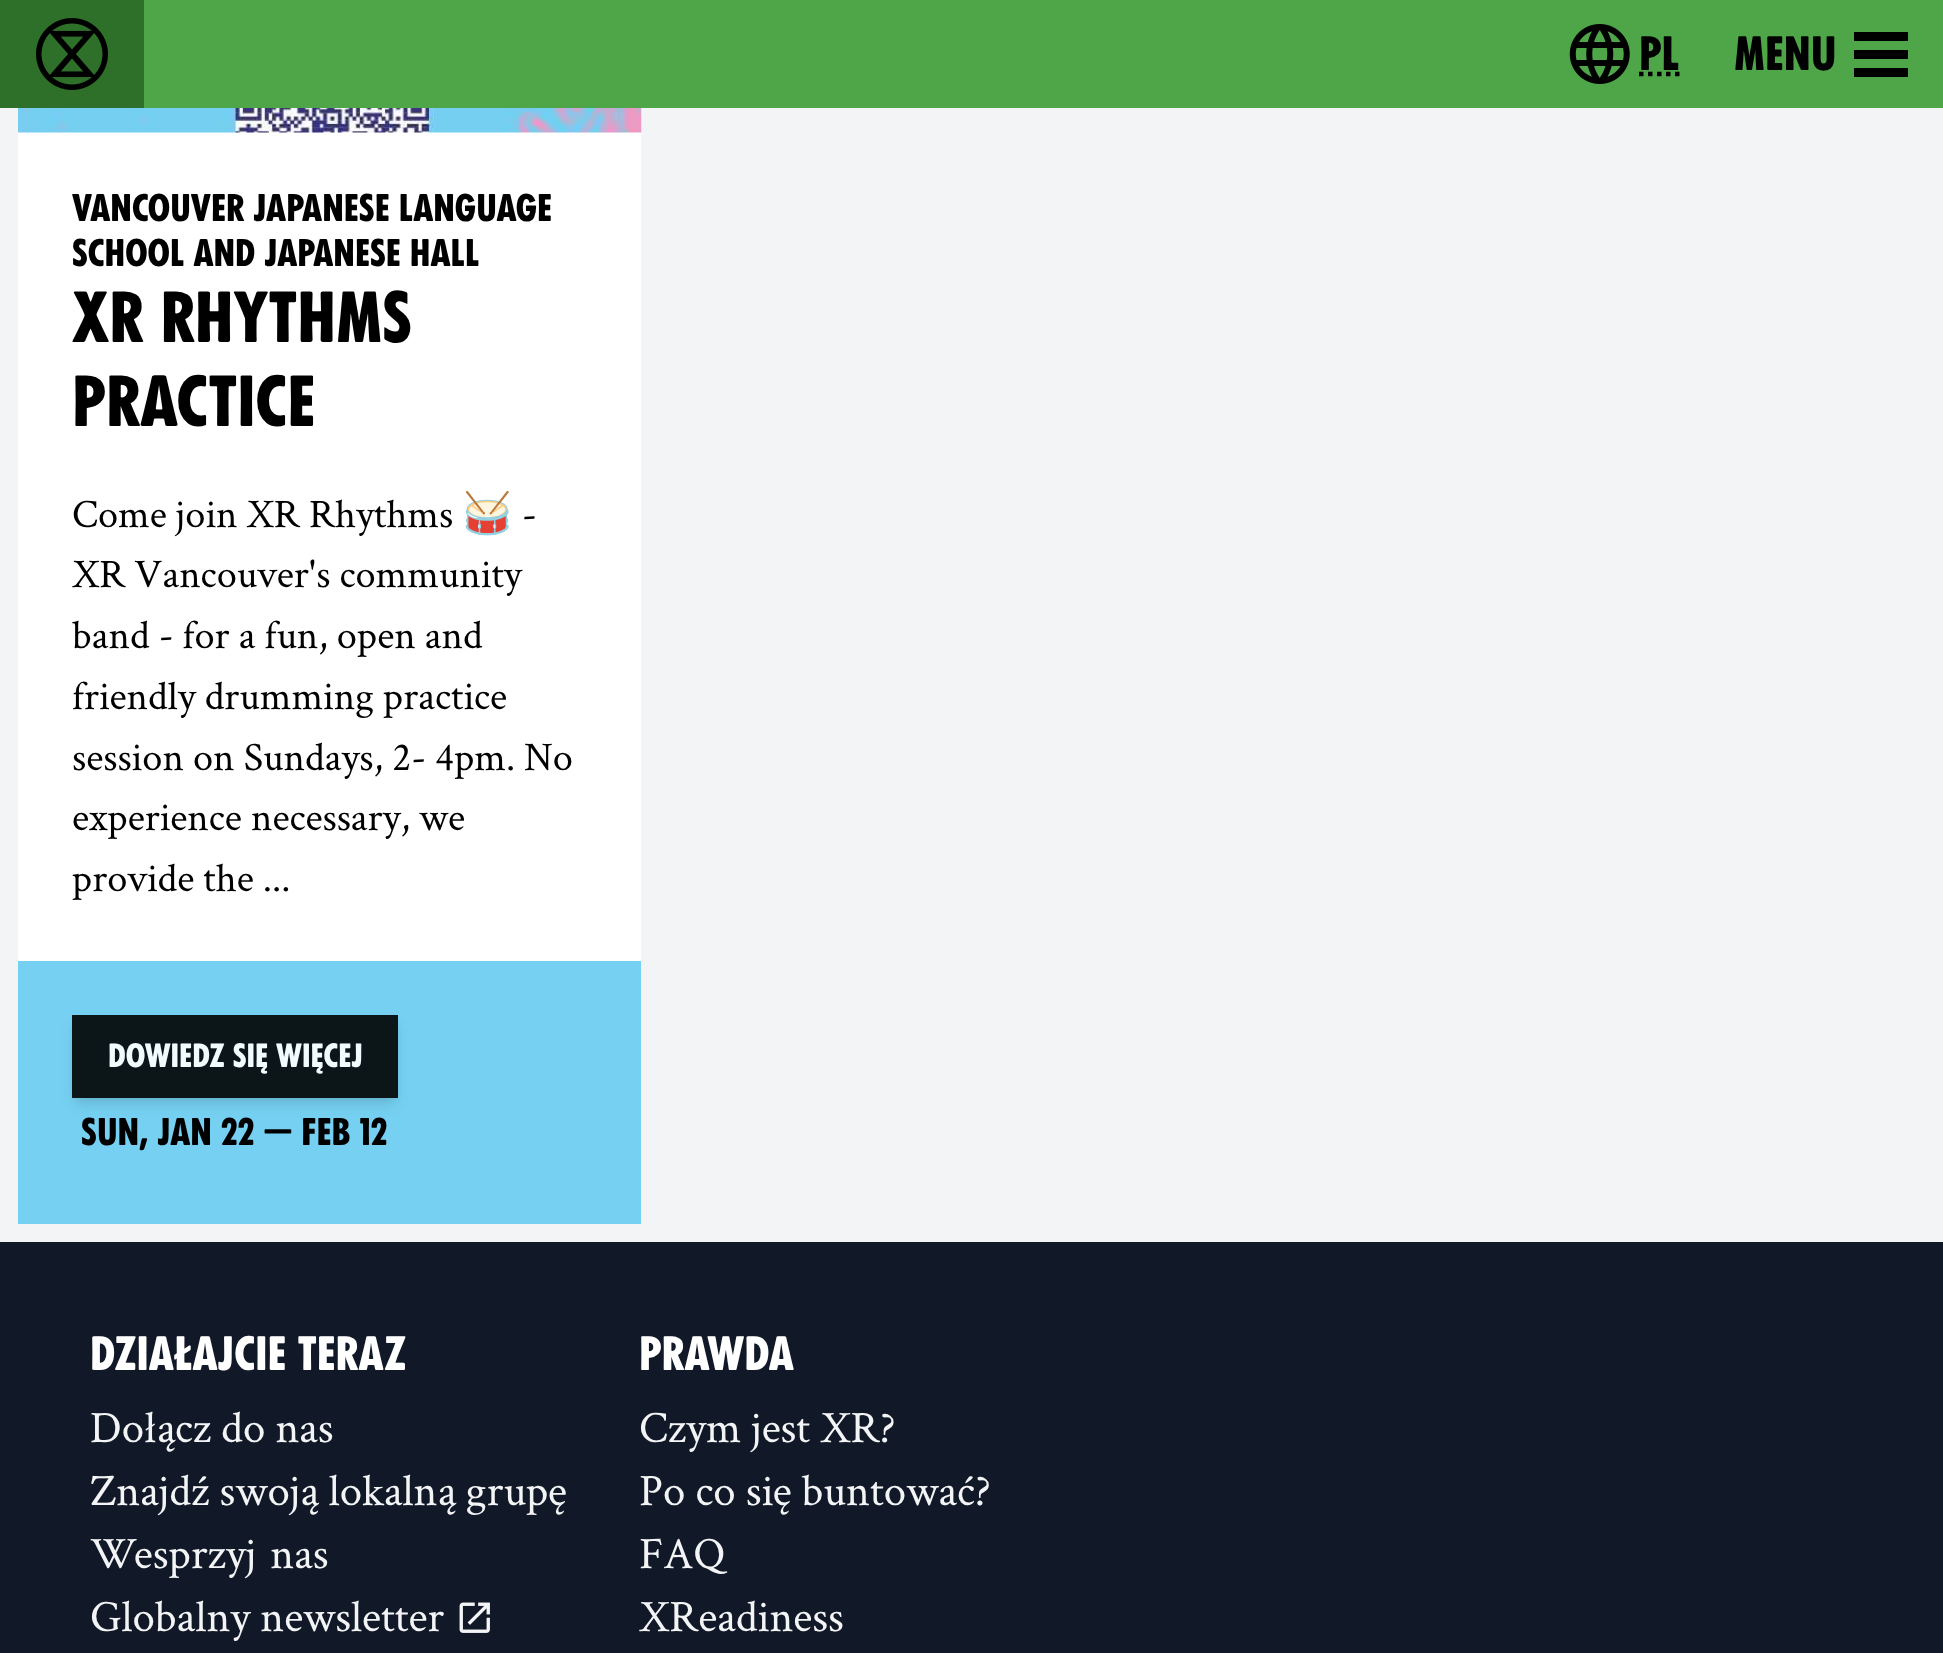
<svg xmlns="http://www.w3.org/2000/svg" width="1943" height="1653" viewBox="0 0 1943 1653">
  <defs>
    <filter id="blur1" x="-50%" y="-200%" width="200%" height="500%"><feGaussianBlur stdDeviation="4.5"/></filter>
    <filter id="blur2" x="-50%" y="-200%" width="200%" height="500%"><feGaussianBlur stdDeviation="7"/></filter>
  </defs>
  <rect width="100%" height="100%" fill="#f3f4f6"/>
  <rect x="144" y="0" width="1799" height="108" fill="#4ea648"/>
  <rect x="0" y="0" width="144" height="108" fill="#2e7029"/>
  <image x="36" y="18" width="72" height="72" href="img1.png"/>
  <image x="1569" y="24" width="61" height="60" href="img2.png"/>
  <text x="1639" y="70" font-family="'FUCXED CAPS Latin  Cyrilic'" font-size="45" fill="#000000">pl</text>
  <path d="M1639 74H1679.5" fill="none" stroke="#000000" stroke-width="4.5" stroke-dasharray="4.5 4.5"/>
  <text x="1734" y="70" font-family="'FUCXED CAPS Latin  Cyrilic'" font-size="45" fill="#000000">Menu</text>
  <rect x="1854" y="50" width="54" height="9" fill="#000000"/>
  <rect x="1854" y="32" width="54" height="9" fill="#000000"/>
  <rect x="1854" y="68" width="54" height="9" fill="#000000"/>
  <rect x="18" y="132" width="623" height="829" fill="#ffffff"/>
  <image x="18" y="108" width="624" height="25" href="img3.png"/>
  <text x="72" y="221" font-family="'FUCXED CAPS Latin  Cyrilic'" font-size="36" fill="#000000">Vancouver Japanese Language</text>
  <text x="72" y="266" font-family="'FUCXED CAPS Latin  Cyrilic'" font-size="36" fill="#000000">School and Japanese Hall</text>
  <text x="72" y="342" font-family="'FUCXED CAPS Latin  Cyrilic'" font-size="67.5" fill="#000000">XR RHYTHMS</text>
  <text x="72" y="426" font-family="'FUCXED CAPS Latin  Cyrilic'" font-size="67.5" fill="#000000">PRACTICE</text>
  <text x="72" y="527" font-family="Crimson Text" font-size="40.5" fill="#000000">Come join XR Rhythms</text>
  <text x="462" y="527" font-family="Noto Color Emoji" font-size="40.5" fill="#000000">🥁</text>
  <text x="522" y="527" font-family="Crimson Text" font-size="40.5" fill="#000000">-</text>
  <text x="72" y="587" font-family="Crimson Text" font-size="40.5" fill="#000000">XR Vancouver's community</text>
  <text x="72" y="648" font-family="Crimson Text" font-size="40.5" fill="#000000">band - for a fun, open and</text>
  <text x="72" y="709" font-family="Crimson Text" font-size="40.5" fill="#000000">friendly drumming practice</text>
  <text x="72" y="770" font-family="Crimson Text" font-size="40.5" fill="#000000">session on Sundays, 2- 4pm. No</text>
  <text x="72" y="830" font-family="Crimson Text" font-size="40.5" fill="#000000">experience necessary, we</text>
  <text x="72" y="891" font-family="Crimson Text" font-size="40.5" fill="#000000">provide the ...</text>
  <rect x="18" y="961" width="623" height="263" fill="#75d0f1"/>
  <rect x="77" y="1024" width="317" height="74" fill="#0c1518" fill-opacity="0.1" filter="url(#blur1)"/>
  <rect x="74" y="1026" width="322" height="79" fill="#000000" fill-opacity="0.09" filter="url(#blur2)"/>
  <rect x="72" y="1015" width="326" height="83" fill="#0c1518"/>
  <text x="108" y="1067" font-family="'FUCXED CAPS Latin  Cyrilic'" font-size="31.5" fill="#f1fafe">Dowiedz się więcej</text>
  <text x="81" y="1145" font-family="'FUCXED CAPS Latin  Cyrilic'" font-size="36" fill="#000000">Sun, Jan 22 — Feb 12</text>
  <rect x="0" y="1242" width="1943" height="411" fill="#111827"/>
  <text x="90" y="1370" font-family="'FUCXED CAPS Latin  Cyrilic'" font-size="45" fill="#ffffff">DZIAŁAJCIE TERAZ</text>
  <text x="90" y="1442" font-family="Crimson Text" font-size="45" fill="#f3f4f6">Dołącz do nas</text>
  <text x="90" y="1505" font-family="Crimson Text" font-size="45" fill="#f3f4f6">Znajdź swoją lokalną grupę</text>
  <text x="90" y="1568" word-spacing="4" font-family="Crimson Text" font-size="45" fill="#f3f4f6">Wesprzyj nas</text>
  <text x="90" y="1631" font-family="Crimson Text" font-size="45" fill="#f3f4f6">Globalny newsletter</text>
  <image x="459" y="1602" width="31" height="31" href="img4.png"/>
  <text x="639" y="1370" font-family="'FUCXED CAPS Latin  Cyrilic'" font-size="45" fill="#ffffff">PRAWDA</text>
  <text x="639" y="1442" font-family="Crimson Text" font-size="45" fill="#f3f4f6">Czym jest XR?</text>
  <text x="639" y="1505" font-family="Crimson Text" font-size="45" fill="#f3f4f6">Po co się buntować?</text>
  <text x="639" y="1568" font-family="Crimson Text" font-size="45" fill="#f3f4f6">FAQ</text>
  <text x="639" y="1631" font-family="Crimson Text" font-size="45" fill="#f3f4f6">XReadiness</text>
</svg>
